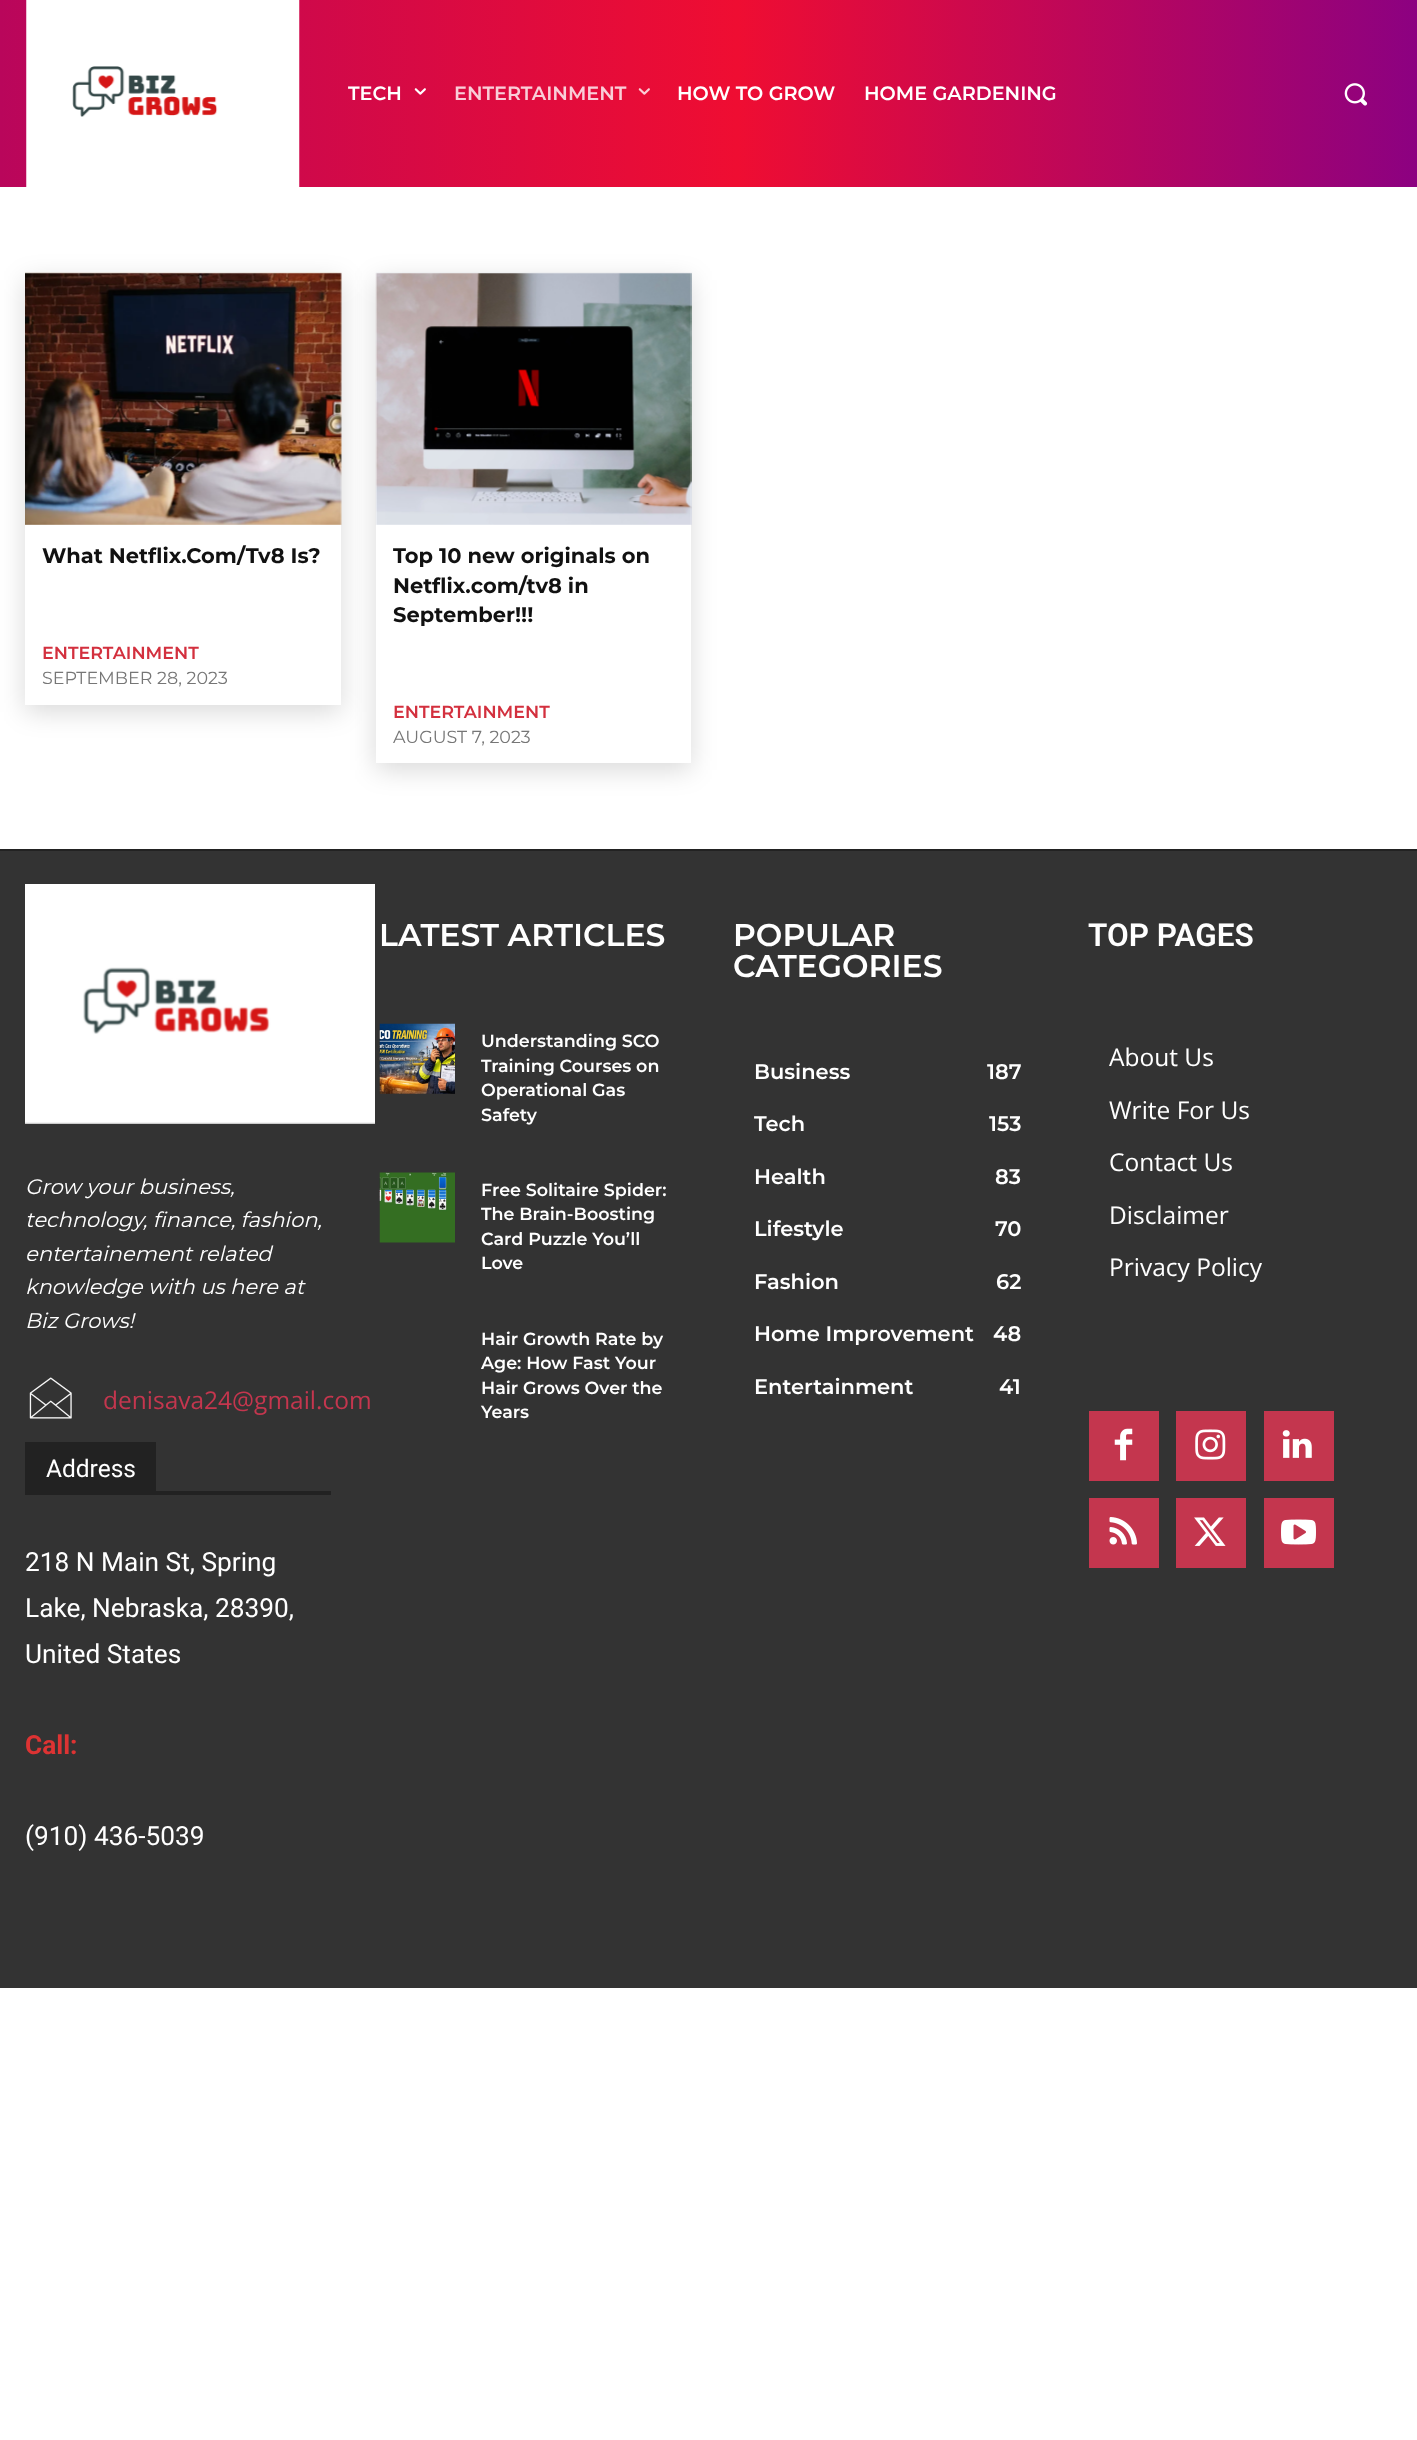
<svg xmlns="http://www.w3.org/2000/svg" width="1417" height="2440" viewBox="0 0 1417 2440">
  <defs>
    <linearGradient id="g1" gradientUnits="userSpaceOnUse" x1="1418" y1="94" x2="0" y2="94"><stop offset="0" stop-color="#8c0181"/><stop offset="0.48" stop-color="#ef0d32"/><stop offset="1" stop-color="#b9065b"/></linearGradient>
    <clipPath id="clip1"><path d="M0 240H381V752H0ZM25 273H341V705H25Z" clip-rule="evenodd"/></clipPath>
    <filter id="blur1" x="-50%" y="-200%" width="200%" height="500%"><feGaussianBlur stdDeviation="13"/></filter>
    <clipPath id="clip2"><path d="M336 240H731V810H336ZM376 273H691V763H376Z" clip-rule="evenodd"/></clipPath>
  </defs>
  <rect width="100%" height="100%" fill="#ffffff"/>
  <rect x="0" y="851" width="1417" height="1137" fill="#333333"/>
  <rect x="0" y="0" width="1417" height="187" fill="url(#g1)"/>
  <image x="26" y="0" width="274" height="187" href="img1.png"/>
  <text x="348" y="100" font-family="Montserrat" font-size="19.25" font-weight="600" fill="#ffffff">TECH</text>
  <image x="414" y="88" width="12" height="7" href="img2.png"/>
  <text x="454" y="100" font-family="Montserrat" font-size="19.25" font-weight="600" fill="#f9ced8">ENTERTAINMENT</text>
  <image x="638" y="88" width="12" height="7" href="img3.png"/>
  <text x="677" y="100" font-family="Montserrat" font-size="19.25" font-weight="600" fill="#ffffff">HOW TO GROW</text>
  <text x="864" y="100" font-family="Montserrat" font-size="19.25" font-weight="600" fill="#ffffff">HOME GARDENING</text>
  <image x="1344" y="83" width="24" height="23" href="img4.png"/>
  <g clip-path="url(#clip1)">
    <rect x="25" y="280" width="316" height="432" fill="#000000" fill-opacity="0.15" filter="url(#blur1)"/>
  </g>
  <image x="25" y="272" width="317" height="253" href="img5.png"/>
  <text x="42" y="563" font-family="Montserrat" font-size="21" font-weight="bold" fill="#111111">What Netflix.Com/Tv8 Is?</text>
  <text x="42" y="659" font-family="Montserrat" font-size="17.5" font-weight="600" fill="#d3303e">ENTERTAINMENT</text>
  <text x="42" y="684" font-family="Montserrat" font-size="17.5" fill="#767676">SEPTEMBER 28, 2023</text>
  <g clip-path="url(#clip2)">
    <rect x="376" y="280" width="315" height="490" fill="#000000" fill-opacity="0.15" filter="url(#blur1)"/>
  </g>
  <image x="375" y="272" width="317" height="253" href="img6.png"/>
  <text x="393" y="563" font-family="Montserrat" font-size="21" font-weight="bold" fill="#111111">Top 10 new originals on</text>
  <text x="393" y="593" font-family="Montserrat" font-size="21" font-weight="bold" fill="#111111">Netflix.com/tv8 in</text>
  <text x="393" y="622" font-family="Montserrat" font-size="21" font-weight="bold" fill="#111111">September!!!</text>
  <text x="393" y="718" font-family="Montserrat" font-size="17.5" font-weight="600" fill="#d3303e">ENTERTAINMENT</text>
  <text x="393" y="743" font-family="Montserrat" font-size="17.5" fill="#767676">AUGUST 7, 2023</text>
  <rect x="0" y="849" width="1417" height="2" fill="#222222"/>
  <text x="379" y="946" font-family="Montserrat" font-size="31.5" font-weight="600" fill="#ffffff">LATEST ARTICLES</text>
  <image x="379" y="1023" width="76" height="71" href="img7.png"/>
  <text x="481" y="1047" font-family="Montserrat" font-size="17.5" font-weight="600" fill="#ffffff">Understanding SCO</text>
  <text x="481" y="1072" font-family="Montserrat" font-size="17.5" font-weight="600" fill="#ffffff">Training Courses on</text>
  <text x="481" y="1096" font-family="Montserrat" font-size="17.5" font-weight="600" fill="#ffffff">Operational Gas</text>
  <text x="481" y="1121" font-family="Montserrat" font-size="17.5" font-weight="600" fill="#ffffff">Safety</text>
  <image x="379" y="1172" width="76" height="71" href="img8.png"/>
  <text x="481" y="1196" font-family="Montserrat" font-size="17.5" font-weight="600" fill="#ffffff">Free Solitaire Spider:</text>
  <text x="481" y="1220" font-family="Montserrat" font-size="17.5" font-weight="600" fill="#ffffff">The Brain-Boosting</text>
  <text x="481" y="1245" font-family="Montserrat" font-size="17.5" font-weight="600" fill="#ffffff">Card Puzzle You’ll</text>
  <text x="481" y="1269" font-family="Montserrat" font-size="17.5" font-weight="600" fill="#ffffff">Love</text>
  <text x="481" y="1345" font-family="Montserrat" font-size="17.5" font-weight="600" fill="#ffffff">Hair Growth Rate by</text>
  <text x="481" y="1369" font-family="Montserrat" font-size="17.5" font-weight="600" fill="#ffffff">Age: How Fast Your</text>
  <text x="481" y="1394" font-family="Montserrat" font-size="17.5" font-weight="600" fill="#ffffff">Hair Grows Over the</text>
  <text x="481" y="1418" font-family="Montserrat" font-size="17.5" font-weight="600" fill="#ffffff">Years</text>
  <text x="733" y="946" font-family="Montserrat" font-size="31.5" font-weight="600" fill="#ffffff">POPULAR</text>
  <text x="733" y="977" font-family="Montserrat" font-size="31.5" font-weight="600" fill="#ffffff">CATEGORIES</text>
  <text x="754" y="1079" font-family="Montserrat" font-size="21" font-weight="600" fill="#ffffff">Business</text>
  <text x="987" y="1079" font-family="Montserrat" font-size="21" font-weight="600" fill="#ffffff">187</text>
  <text x="754" y="1131" font-family="Montserrat" font-size="21" font-weight="600" fill="#ffffff">Tech</text>
  <text x="989" y="1131" font-family="Montserrat" font-size="21" font-weight="600" fill="#ffffff">153</text>
  <text x="754" y="1184" font-family="Montserrat" font-size="21" font-weight="600" fill="#ffffff">Health</text>
  <text x="995" y="1184" font-family="Montserrat" font-size="21" font-weight="600" fill="#ffffff">83</text>
  <text x="754" y="1236" font-family="Montserrat" font-size="21" font-weight="600" fill="#ffffff">Lifestyle</text>
  <text x="995" y="1236" font-family="Montserrat" font-size="21" font-weight="600" fill="#ffffff">70</text>
  <text x="754" y="1289" font-family="Montserrat" font-size="21" font-weight="600" fill="#ffffff">Fashion</text>
  <text x="996" y="1289" font-family="Montserrat" font-size="21" font-weight="600" fill="#ffffff">62</text>
  <text x="754" y="1341" font-family="Montserrat" font-size="21" font-weight="600" fill="#ffffff">Home Improvement</text>
  <text x="993" y="1341" font-family="Montserrat" font-size="21" font-weight="600" fill="#ffffff">48</text>
  <text x="754" y="1394" font-family="Montserrat" font-size="21" font-weight="600" fill="#ffffff">Entertainment</text>
  <text x="999" y="1394" font-family="Montserrat" font-size="21" font-weight="600" fill="#ffffff">41</text>
  <text x="1088" y="946" font-family="Roboto" font-size="31.5" font-weight="600" fill="#ffffff">TOP PAGES</text>
  <text x="1109" y="1066" font-family="Open Sans" font-size="24.5" fill="#ffffff">About Us</text>
  <text x="1109" y="1119" font-family="Open Sans" font-size="24.5" fill="#ffffff">Write For Us</text>
  <text x="1109" y="1171" font-family="Open Sans" font-size="24.5" fill="#ffffff">Contact Us</text>
  <text x="1109" y="1224" font-family="Open Sans" font-size="24.5" fill="#ffffff">Disclaimer</text>
  <text x="1109" y="1276" font-family="Open Sans" font-size="24.5" fill="#ffffff">Privacy Policy</text>
  <rect x="1089" y="1411" width="70" height="70" fill="#c4364e"/>
  <image x="1114" y="1428" width="19" height="33" href="img9.png"/>
  <rect x="1176" y="1411" width="70" height="70" fill="#c4364e"/>
  <image x="1195" y="1429" width="31" height="31" href="img10.png"/>
  <rect x="1264" y="1411" width="70" height="70" fill="#c4364e"/>
  <image x="1282" y="1430" width="30" height="28" href="img11.png"/>
  <rect x="1089" y="1498" width="70" height="70" fill="#c4364e"/>
  <image x="1109" y="1517" width="28" height="28" href="img12.png"/>
  <rect x="1176" y="1498" width="70" height="70" fill="#c4364e"/>
  <image x="1194" y="1517" width="32" height="29" href="img13.png"/>
  <rect x="1264" y="1498" width="70" height="70" fill="#c4364e"/>
  <image x="1281" y="1519" width="35" height="26" href="img14.png"/>
  <image x="25" y="884" width="350" height="240" href="img15.png"/>
  <text x="25" y="1194" font-family="Montserrat" font-size="21" font-style="italic" fill="#ffffff">Grow your business,</text>
  <text x="25" y="1227" font-family="Montserrat" font-size="21" font-style="italic" fill="#ffffff">technology, finance, fashion,</text>
  <text x="25" y="1261" font-family="Montserrat" font-size="21" font-style="italic" fill="#ffffff">entertainement related</text>
  <text x="25" y="1294" font-family="Montserrat" font-size="21" font-style="italic" fill="#ffffff">knowledge with us here at</text>
  <text x="25" y="1328" font-family="Montserrat" font-size="21" font-style="italic" fill="#ffffff">Biz Grows!</text>
  <image x="29" y="1377" width="43" height="42" href="img16.png"/>
  <text x="103" y="1409" font-family="Open Sans" font-size="24.5" fill="#c4364e">denisava24@gmail.com</text>
  <rect x="25" y="1491" width="306" height="4" fill="#222222"/>
  <rect x="25" y="1442" width="131" height="49" fill="#222222"/>
  <text x="46" y="1477" font-family="Roboto" font-size="24.5" fill="#ffffff">Address</text>
  <text x="25" y="1571" font-family="Roboto" font-size="26.25" fill="#ffffff">218 N Main St, Spring</text>
  <text x="25" y="1617" font-family="Roboto" font-size="26.25" fill="#ffffff">Lake, Nebraska, 28390,</text>
  <text x="25" y="1663" font-family="Roboto" font-size="26.25" fill="#ffffff">United States</text>
  <text x="25" y="1754" font-family="Roboto" font-size="26.25" font-weight="bold" fill="#dd3333">Call:</text>
  <text x="25" y="1845" font-family="Roboto" font-size="26.25" fill="#ffffff">(910) 436-5039</text>
</svg>
